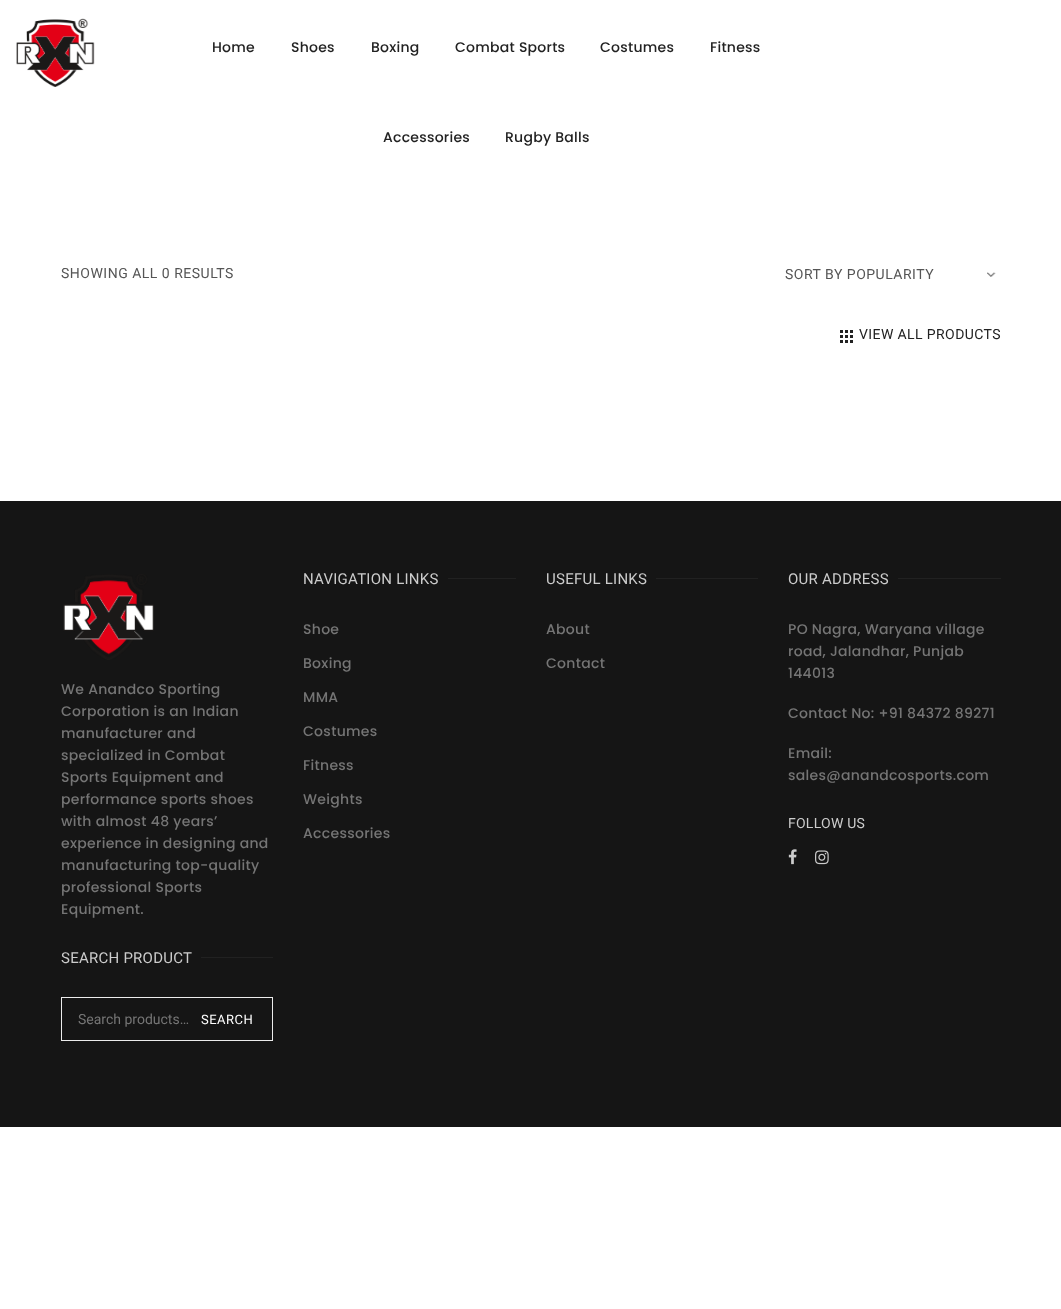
<svg xmlns="http://www.w3.org/2000/svg" width="1061" height="1309" viewBox="0 0 1061 1309">
  <rect width="100%" height="100%" fill="#ffffff"/>
  <image x="16" y="18" width="79" height="69" href="img1.png"/>
  <text x="212" y="52" font-family="Poppins" font-size="14" font-weight="500" letter-spacing="0.25" fill="#222222">Home</text>
  <text x="291" y="52" font-family="Poppins" font-size="14" font-weight="500" letter-spacing="0.25" fill="#222222">Shoes</text>
  <text x="371" y="52" font-family="Poppins" font-size="14" font-weight="500" letter-spacing="0.25" fill="#222222">Boxing</text>
  <text x="455" y="52" font-family="Poppins" font-size="14" font-weight="500" letter-spacing="0.25" fill="#222222">Combat Sports</text>
  <text x="600" y="52" font-family="Poppins" font-size="14" font-weight="500" letter-spacing="0.25" fill="#222222">Costumes</text>
  <text x="710" y="52" font-family="Poppins" font-size="14" font-weight="500" letter-spacing="0.25" fill="#222222">Fitness</text>
  <text x="383" y="142" font-family="Poppins" font-size="14" font-weight="500" letter-spacing="0.25" fill="#222222">Accessories</text>
  <text x="505" y="142" font-family="Poppins" font-size="14" font-weight="500" letter-spacing="0.25" fill="#222222">Rugby Balls</text>
  <text x="61" y="278" font-family="Roboto" font-size="14" letter-spacing="0.5" fill="#555555">SHOWING ALL 0 RESULTS</text>
  <image x="987" y="272" width="9" height="5" href="img2.png"/>
  <text x="785" y="279" font-family="Roboto" font-size="14" letter-spacing="0.5" fill="#555555">SORT BY POPULARITY</text>
  <rect x="840" y="330" width="3" height="3" fill="#222222"/>
  <rect x="845" y="330" width="3" height="3" fill="#222222"/>
  <rect x="850" y="330" width="3" height="3" fill="#222222"/>
  <rect x="840" y="335" width="3" height="3" fill="#222222"/>
  <rect x="845" y="335" width="3" height="3" fill="#222222"/>
  <rect x="850" y="335" width="3" height="3" fill="#222222"/>
  <rect x="840" y="340" width="3" height="3" fill="#222222"/>
  <rect x="845" y="340" width="3" height="3" fill="#222222"/>
  <rect x="850" y="340" width="3" height="3" fill="#222222"/>
  <text x="859" y="339" font-family="Roboto" font-size="14" letter-spacing="0.4" fill="#222222">VIEW ALL PRODUCTS</text>
  <rect x="0" y="501" width="1061" height="626" fill="#151515"/>
  <image x="63" y="574" width="91" height="86" href="img3.png"/>
  <text x="61" y="694" font-family="Poppins" font-size="14" font-weight="500" letter-spacing="0.3" fill="#757575">We Anandco Sporting</text>
  <text x="61" y="716" font-family="Poppins" font-size="14" font-weight="500" letter-spacing="0.3" fill="#757575">Corporation is an Indian</text>
  <text x="61" y="738" font-family="Poppins" font-size="14" font-weight="500" letter-spacing="0.3" fill="#757575">manufacturer and</text>
  <text x="61" y="760" font-family="Poppins" font-size="14" font-weight="500" letter-spacing="0.3" fill="#757575">specialized in Combat</text>
  <text x="61" y="782" font-family="Poppins" font-size="14" font-weight="500" letter-spacing="0.3" fill="#757575">Sports Equipment and</text>
  <text x="61" y="804" font-family="Poppins" font-size="14" font-weight="500" letter-spacing="0.3" fill="#757575">performance sports shoes</text>
  <text x="61" y="826" font-family="Poppins" font-size="14" font-weight="500" letter-spacing="0.3" fill="#757575">with almost 48 years’</text>
  <text x="61" y="848" font-family="Poppins" font-size="14" font-weight="500" letter-spacing="0.3" fill="#757575">experience in designing and</text>
  <text x="61" y="870" font-family="Poppins" font-size="14" font-weight="500" letter-spacing="0.3" fill="#757575">manufacturing top-quality</text>
  <text x="61" y="892" font-family="Poppins" font-size="14" font-weight="500" letter-spacing="0.3" fill="#757575">professional Sports</text>
  <text x="61" y="914" font-family="Poppins" font-size="14" font-weight="500" letter-spacing="0.3" fill="#757575">Equipment.</text>
  <text x="61" y="963" font-family="Roboto" font-size="15" letter-spacing="0.25" fill="#cccccc">SEARCH PRODUCT</text>
  <rect x="201" y="957" width="72" height="1" fill="#212121"/>
  <rect x="61.5" y="997.5" width="211" height="43" fill="none" stroke="#ececec"/>
  <text x="78" y="1024" font-family="Roboto" font-size="14" fill="#757575">Search products…</text>
  <text x="201" y="1024" font-family="Roboto" font-size="13" letter-spacing="0.5" fill="#ffffff">SEARCH</text>
  <text x="303" y="584" font-family="Roboto" font-size="15" letter-spacing="0.25" fill="#cccccc">NAVIGATION LINKS</text>
  <rect x="448" y="578" width="68" height="1" fill="#212121"/>
  <text x="303" y="634" font-family="Poppins" font-size="14" font-weight="500" letter-spacing="0.3" fill="#757575">Shoe</text>
  <text x="303" y="668" font-family="Poppins" font-size="14" font-weight="500" letter-spacing="0.3" fill="#757575">Boxing</text>
  <text x="303" y="702" font-family="Poppins" font-size="14" font-weight="500" letter-spacing="0.3" fill="#757575">MMA</text>
  <text x="303" y="736" font-family="Poppins" font-size="14" font-weight="500" letter-spacing="0.3" fill="#757575">Costumes</text>
  <text x="303" y="770" font-family="Poppins" font-size="14" font-weight="500" letter-spacing="0.3" fill="#757575">Fitness</text>
  <text x="303" y="804" font-family="Poppins" font-size="14" font-weight="500" letter-spacing="0.3" fill="#757575">Weights</text>
  <text x="303" y="838" font-family="Poppins" font-size="14" font-weight="500" letter-spacing="0.3" fill="#757575">Accessories</text>
  <text x="546" y="584" font-family="Roboto" font-size="15" letter-spacing="0.25" fill="#cccccc">USEFUL LINKS</text>
  <rect x="656" y="578" width="102" height="1" fill="#212121"/>
  <text x="546" y="634" font-family="Poppins" font-size="14" font-weight="500" letter-spacing="0.3" fill="#757575">About</text>
  <text x="546" y="668" font-family="Poppins" font-size="14" font-weight="500" letter-spacing="0.3" fill="#757575">Contact</text>
  <text x="788" y="584" font-family="Roboto" font-size="15" letter-spacing="0.25" fill="#cccccc">OUR ADDRESS</text>
  <rect x="898" y="578" width="103" height="1" fill="#212121"/>
  <text x="788" y="634" font-family="Poppins" font-size="14" font-weight="500" letter-spacing="0.3" fill="#757575">PO Nagra, Waryana village</text>
  <text x="788" y="656" font-family="Poppins" font-size="14" font-weight="500" letter-spacing="0.3" fill="#757575">road, Jalandhar, Punjab</text>
  <text x="788" y="678" font-family="Poppins" font-size="14" font-weight="500" letter-spacing="0.3" fill="#757575">144013</text>
  <text x="788" y="718" font-family="Poppins" font-size="14" font-weight="500" letter-spacing="0.3" fill="#757575">Contact No: +91 84372 89271</text>
  <text x="788" y="758" font-family="Poppins" font-size="14" font-weight="500" letter-spacing="0.3" fill="#757575">Email:</text>
  <text x="788" y="780" font-family="Poppins" font-size="14" font-weight="500" letter-spacing="0.3" fill="#757575">sales@anandcosports.com</text>
  <text x="788" y="828" font-family="Roboto" font-size="14" letter-spacing="0.25" fill="#cccccc">FOLLOW US</text>
  <image x="788" y="849" width="9" height="16" href="img4.png"/>
  <image x="815" y="850" width="14" height="15" href="img5.png"/>
</svg>
